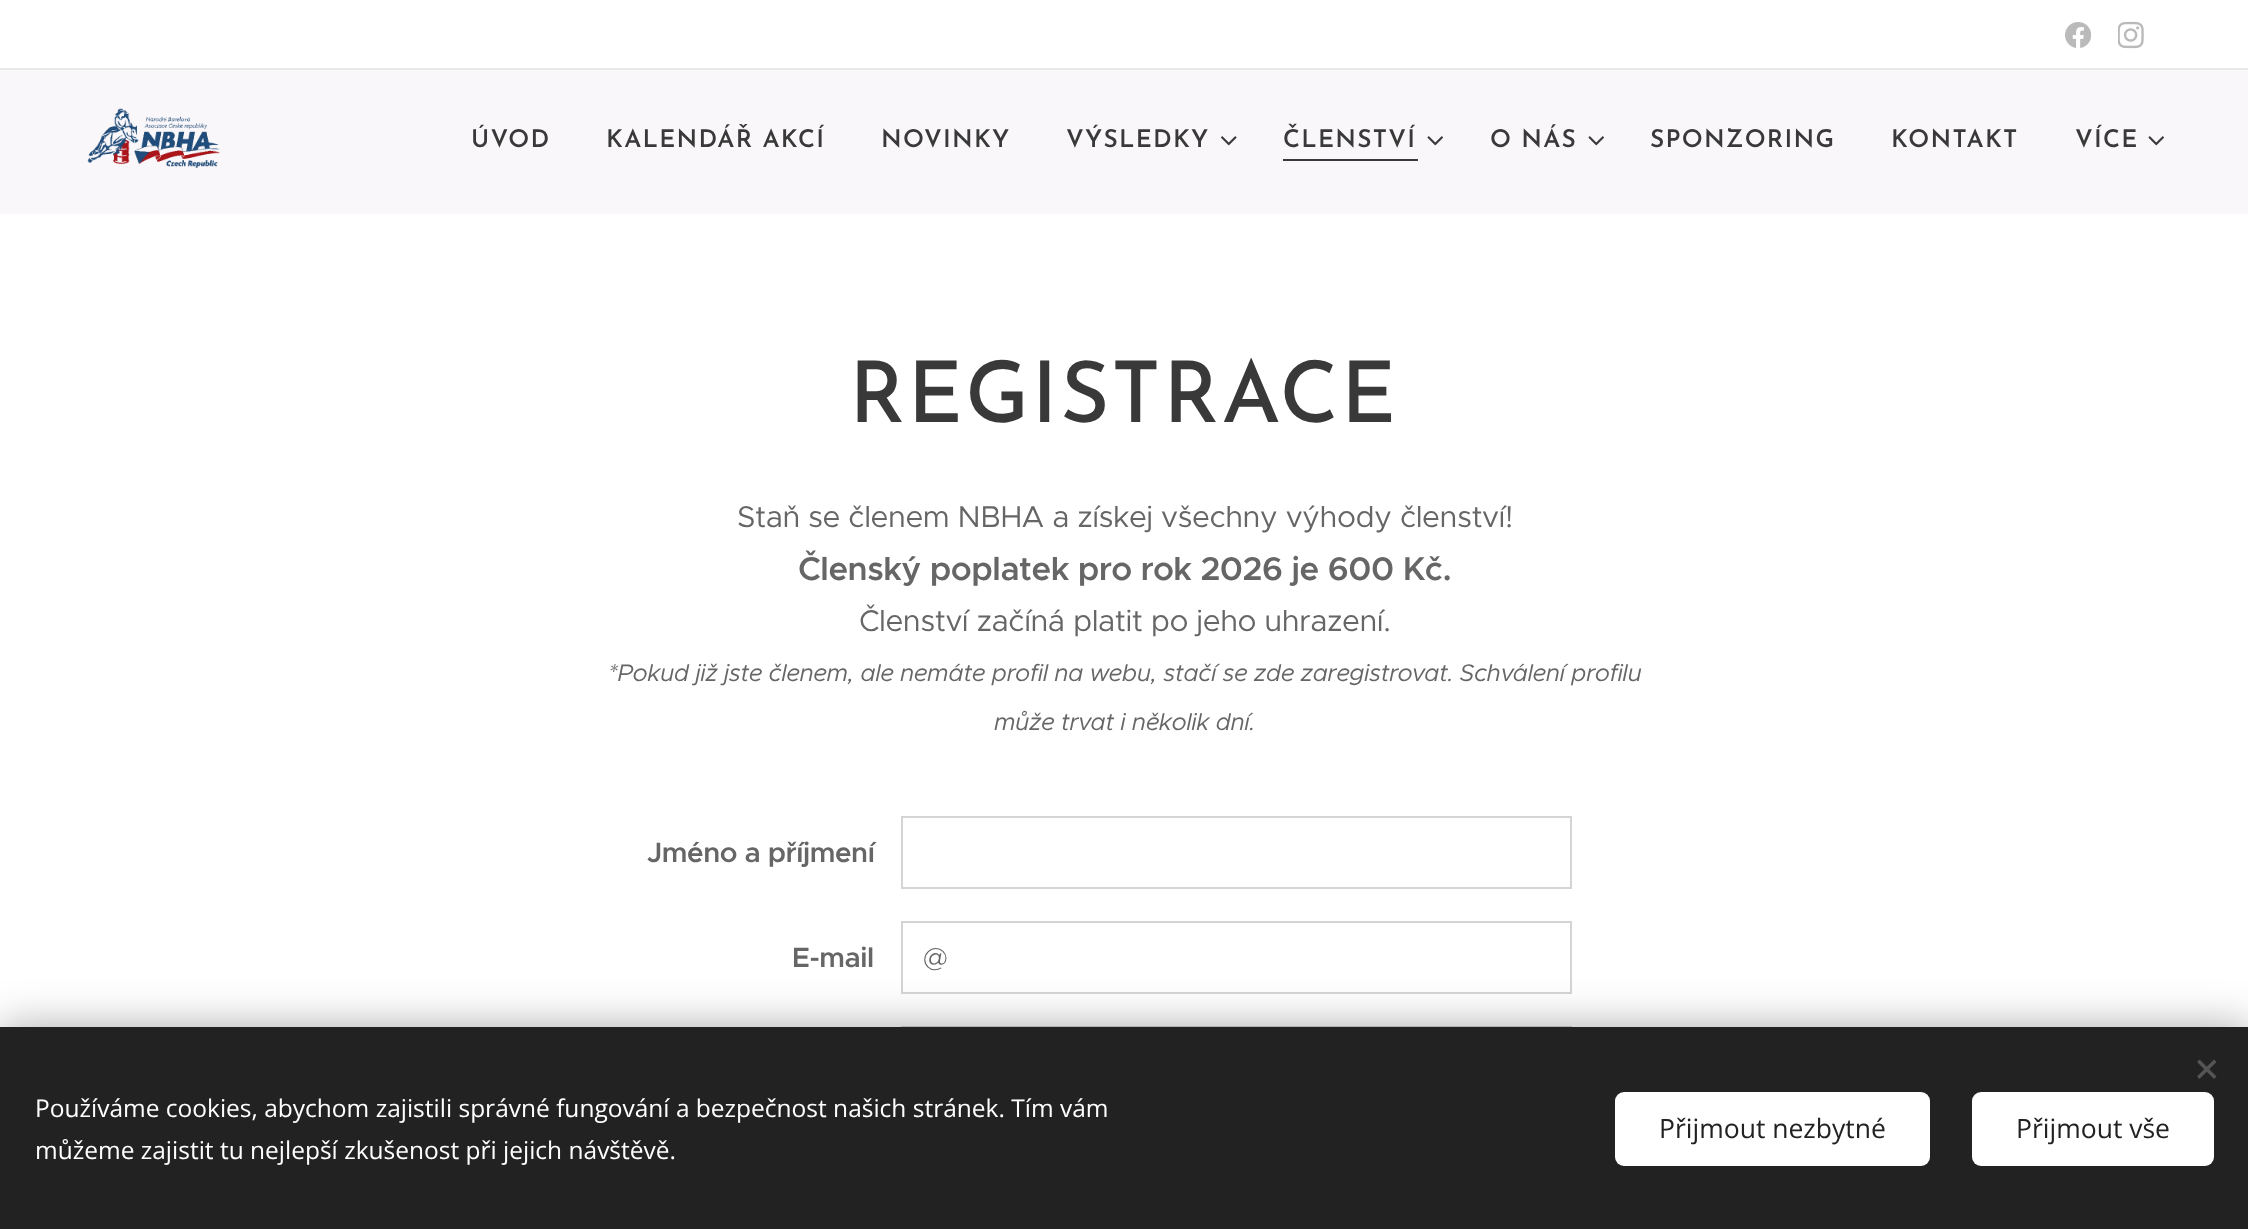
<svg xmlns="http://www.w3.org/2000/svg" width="2248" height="1229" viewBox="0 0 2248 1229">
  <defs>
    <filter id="blur1" x="-50%" y="-200%" width="200%" height="500%"><feGaussianBlur stdDeviation="22"/></filter>
  </defs>
  <rect width="100%" height="100%" fill="#ffffff"/>
  <image x="2065" y="22" width="26" height="26" href="img1.png"/>
  <image x="2118" y="21" width="26" height="28" href="img2.png"/>
  <rect x="0" y="68" width="2248" height="2" fill="#e8e8e8"/>
  <rect x="0" y="70" width="2248" height="144" fill="#f9f7fa"/>
  <image x="87" y="108" width="133" height="60" href="img3.png"/>
  <text x="471" y="147" font-family="Josefin Sans" font-size="24.5" font-weight="600" letter-spacing="1.25" fill="#393939">ÚVOD</text>
  <text x="606" y="147" font-family="Josefin Sans" font-size="24.5" font-weight="600" letter-spacing="1.25" fill="#393939">KALENDÁŘ AKCÍ</text>
  <text x="881" y="147" font-family="Josefin Sans" font-size="24.5" font-weight="600" letter-spacing="1.25" fill="#393939">NOVINKY</text>
  <text x="1066" y="147" font-family="Josefin Sans" font-size="24.5" font-weight="600" letter-spacing="1.25" fill="#393939">VÝSLEDKY</text>
  <image x="1221" y="136" width="16" height="10" href="img4.png"/>
  <text x="1283" y="147" font-family="Josefin Sans" font-size="24.5" font-weight="600" letter-spacing="1.25" fill="#393939">ČLENSTVÍ</text>
  <rect x="1283" y="159" width="135" height="2" fill="#393939"/>
  <image x="1427" y="136" width="16" height="10" href="img5.png"/>
  <text x="1490" y="147" font-family="Josefin Sans" font-size="24.5" font-weight="600" letter-spacing="1.25" fill="#393939">O NÁS</text>
  <image x="1588" y="136" width="16" height="10" href="img5.png"/>
  <text x="1650" y="147" font-family="Josefin Sans" font-size="24.5" font-weight="600" letter-spacing="1.25" fill="#393939">SPONZORING</text>
  <text x="1891" y="147" font-family="Josefin Sans" font-size="24.5" font-weight="600" letter-spacing="1.25" fill="#393939">KONTAKT</text>
  <text x="2075" y="147" font-family="Josefin Sans" font-size="24.5" font-weight="600" letter-spacing="1.25" fill="#393939">VÍCE</text>
  <image x="2148" y="136" width="16" height="10" href="img5.png"/>
  <text x="849" y="422" font-family="Josefin Sans" font-size="84.75" font-weight="500" letter-spacing="2.25" fill="#393939">REGISTRACE</text>
  <text x="737" y="527" font-family="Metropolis" font-size="30.1" letter-spacing="-0.45" fill="#666666">Staň se členem NBHA a získej všechny výhody členství!</text>
  <text x="798" y="580" font-family="Metropolis" font-size="33.1" font-weight="600" letter-spacing="-0.45" fill="#666666">Členský poplatek pro rok 2026 je 600 Kč.</text>
  <text x="859" y="631" font-family="Metropolis" font-size="30.1" letter-spacing="-0.45" fill="#666666">Členství začíná platit po jeho uhrazení.</text>
  <text x="608" y="681" font-family="Metropolis" font-size="24.1" font-style="italic" letter-spacing="-0.45" fill="#666666">*Pokud již jste členem, ale nemáte profil na webu, stačí se zde zaregistrovat. Schválení profilu</text>
  <text x="994" y="730" font-family="Metropolis" font-size="24.1" font-style="italic" letter-spacing="-0.45" fill="#666666">může trvat i několik dní.</text>
  <text x="647" y="862" font-family="Metropolis" font-size="28" font-weight="600" letter-spacing="-0.45" fill="#666666">Jméno a příjmení</text>
  <rect x="902" y="817" width="669" height="71" fill="none" stroke="#d4d4d4" stroke-width="2"/>
  <text x="792" y="967" font-family="Metropolis" font-size="28" font-weight="600" letter-spacing="-0.45" fill="#666666">E-mail</text>
  <rect x="902" y="922" width="669" height="71" fill="none" stroke="#d4d4d4" stroke-width="2"/>
  <text x="923" y="967" font-family="Metropolis" font-size="28" font-weight="300" fill="#666666">@</text>
  <rect x="902" y="1027" width="669" height="71" fill="none" stroke="#d4d4d4" stroke-width="2"/>
  <rect x="0" y="1027" width="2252" height="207" fill="#000000" fill-opacity="0.33" filter="url(#blur1)"/>
  <rect x="0" y="1027" width="2248" height="202" fill="#222222"/>
  <path d="M2197 1076.5L2214 1059.5L2216.5 1062L2199.5 1079Z" fill="#555555"/>
  <path d="M2199.5 1059.5L2216.5 1076.5L2214 1079L2197 1062Z" fill="#555555"/>
  <text x="35" y="1117" font-family="Open Sans" font-size="24.5" fill="#ffffff">Používáme cookies, abychom zajistili správné fungování a bezpečnost našich stránek. Tím vám</text>
  <text x="35" y="1159" font-family="Open Sans" font-size="24.5" fill="#ffffff">můžeme zajistit tu nejlepší zkušenost při jejich návštěvě.</text>
  <rect x="1615" y="1092" width="315" height="74" rx="9" fill="#ffffff"/>
  <text x="1659" y="1138" font-family="Open Sans" font-size="26.5" fill="#222222">Přijmout nezbytné</text>
  <rect x="1972" y="1092" width="242" height="74" rx="9" fill="#ffffff"/>
  <text x="2016" y="1138" font-family="Open Sans" font-size="26.5" fill="#222222">Přijmout vše</text>
</svg>
